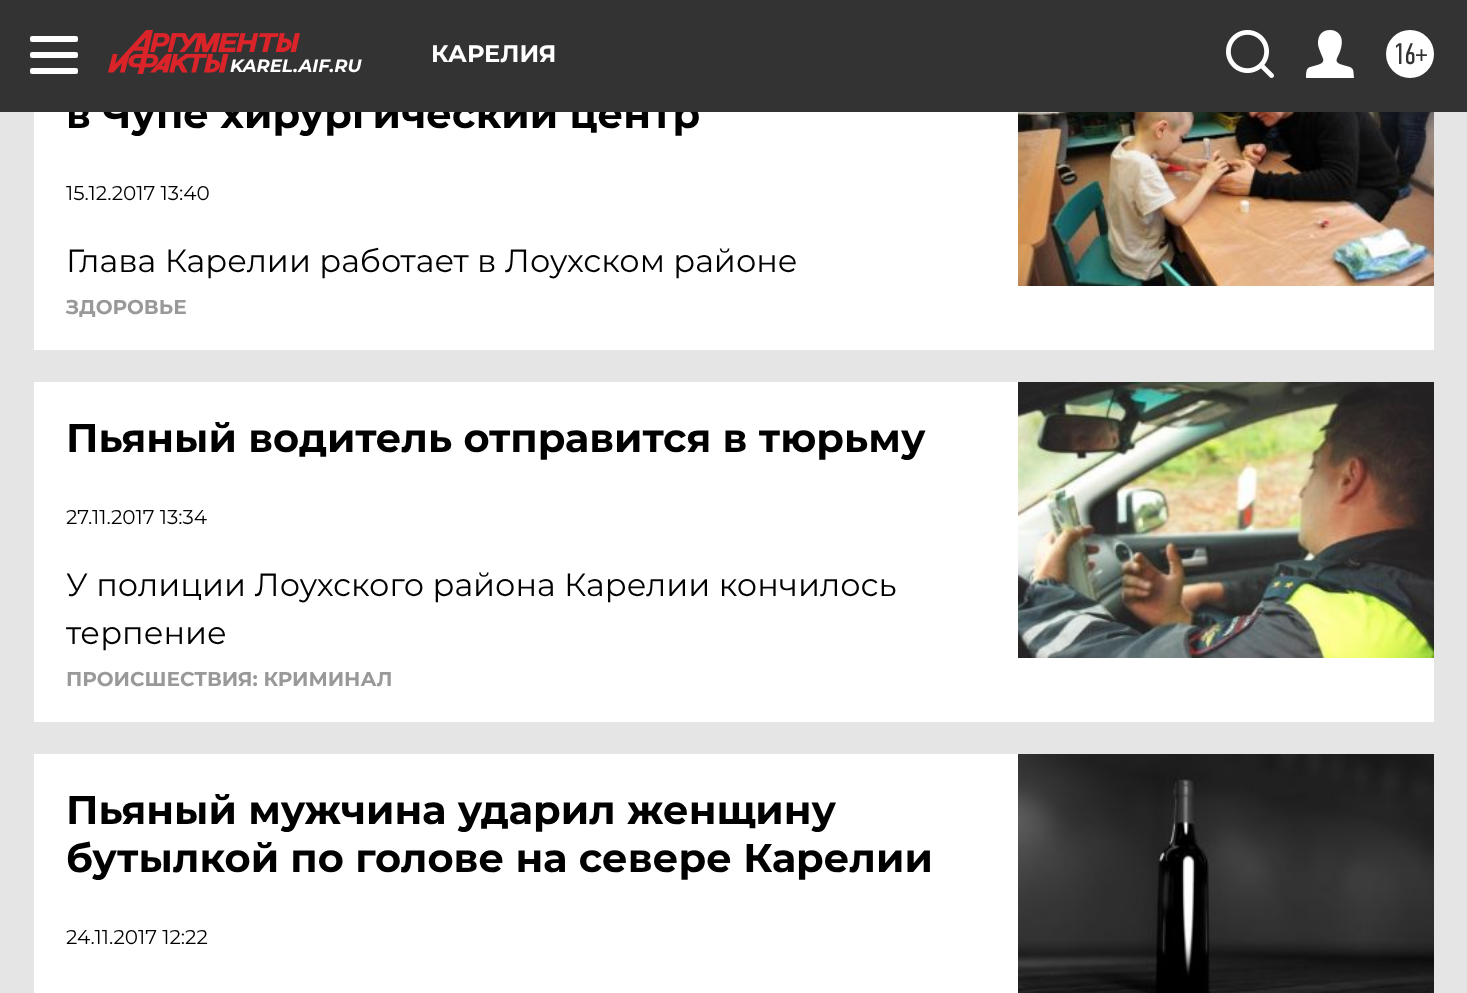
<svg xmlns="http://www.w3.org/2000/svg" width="1467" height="993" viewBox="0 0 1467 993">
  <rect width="100%" height="100%" fill="#e5e5e5"/>
  <rect x="34" y="112" width="1400" height="238" fill="#ffffff"/>
  <text x="66" y="128" font-family="Montserrat" font-size="40" font-weight="bold" fill="#000000">в Чупе хирургический центр</text>
  <rect x="0" y="0" width="1467" height="112" fill="#333333"/>
  <rect x="30" y="36" width="48" height="6" rx="2" fill="#ffffff"/>
  <rect x="30" y="52" width="48" height="6" rx="2" fill="#ffffff"/>
  <rect x="30" y="68" width="48" height="6" rx="2" fill="#ffffff"/>
  <text x="431" y="62" font-family="Montserrat" font-size="24" font-weight="bold" fill="#ffffff">КАРЕЛИЯ</text>
  <image x="1226" y="30" width="48" height="48" href="img1.png"/>
  <image x="1306" y="30" width="48" height="48" href="img2.png"/>
  <circle cx="1410" cy="54" r="24" fill="#ffffff"/>
  <text x="1393" y="64" font-family="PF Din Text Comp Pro" font-size="30" fill="#333333">16+</text>
  <image x="108" y="30" width="192" height="44" href="img3.png"/>
  <text x="230" y="72" font-family="Montserrat" font-size="18" font-weight="bold" font-style="italic" fill="#ffffff">KAREL.AIF.RU</text>
  <text x="66" y="200" font-family="Montserrat" font-size="20" fill="#000000">15.12.2017 13:40</text>
  <text x="66" y="272" font-family="Montserrat" font-size="32" fill="#000000">Глава Карелии работает в Лоухском районе</text>
  <image x="1018" y="112" width="416" height="174" href="img4.png"/>
  <text x="66" y="314" font-family="Montserrat" font-size="20" font-weight="bold" fill="#999999">ЗДОРОВЬЕ</text>
  <rect x="34" y="382" width="1400" height="340" fill="#ffffff"/>
  <text x="66" y="452" font-family="Montserrat" font-size="40" font-weight="bold" fill="#000000">Пьяный водитель отправится в тюрьму</text>
  <text x="66" y="524" font-family="Montserrat" font-size="20" fill="#000000">27.11.2017 13:34</text>
  <text x="66" y="596" font-family="Montserrat" font-size="32" fill="#000000">У полиции Лоухского района Карелии кончилось</text>
  <text x="66" y="644" font-family="Montserrat" font-size="32" fill="#000000">терпение</text>
  <image x="1018" y="382" width="416" height="276" href="img5.png"/>
  <text x="66" y="686" font-family="Montserrat" font-size="20" font-weight="bold" fill="#999999">ПРОИСШЕСТВИЯ: КРИМИНАЛ</text>
  <rect x="34" y="754" width="984" height="239" fill="#ffffff"/>
  <text x="66" y="824" font-family="Montserrat" font-size="40" font-weight="bold" fill="#000000">Пьяный мужчина ударил женщину</text>
  <text x="66" y="872" font-family="Montserrat" font-size="40" font-weight="bold" fill="#000000">бутылкой по голове на севере Карелии</text>
  <text x="66" y="944" font-family="Montserrat" font-size="20" fill="#000000">24.11.2017 12:22</text>
  <image x="1018" y="754" width="416" height="239" href="img6.png"/>
</svg>
